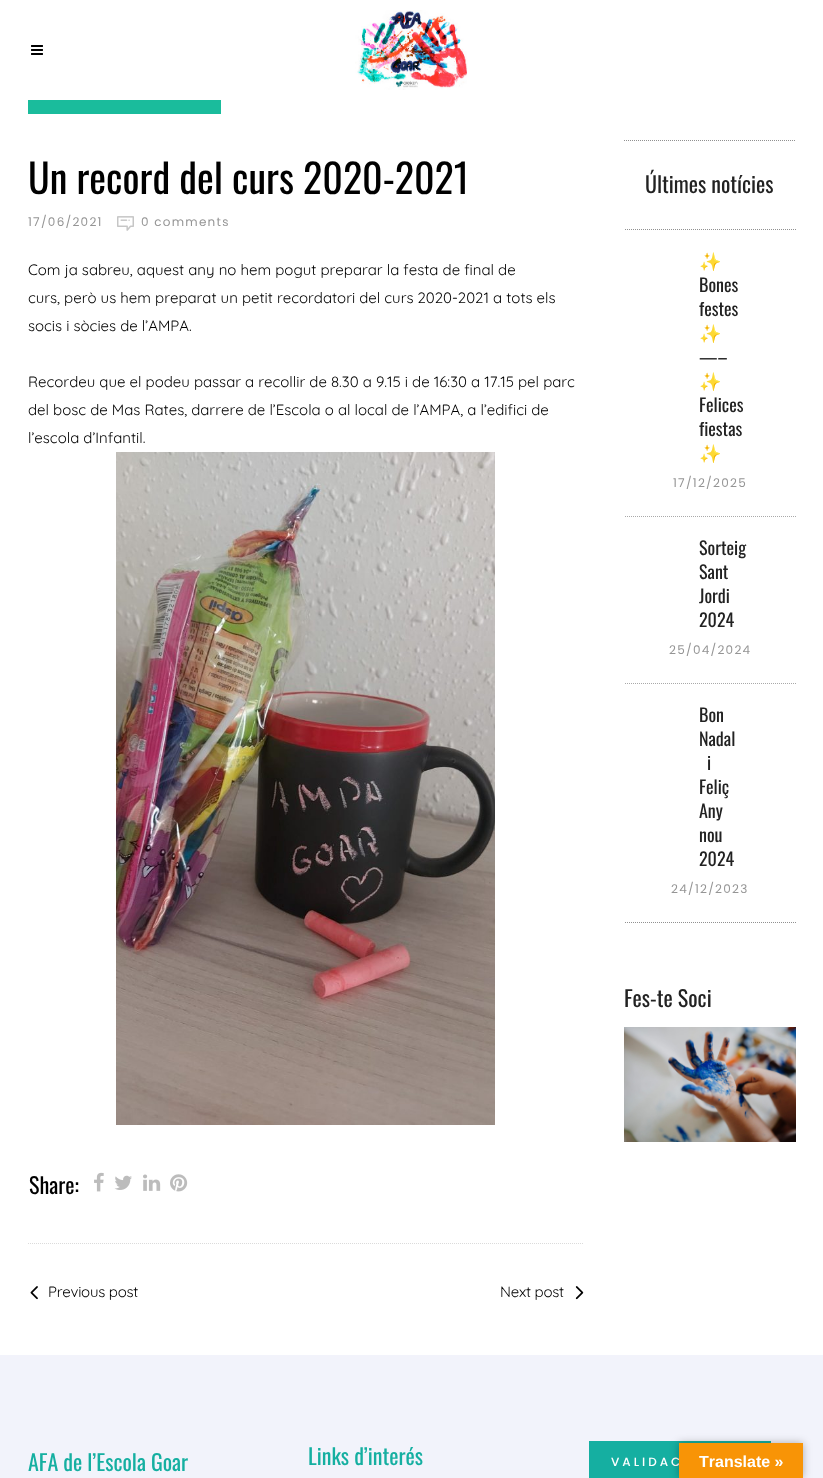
<svg xmlns="http://www.w3.org/2000/svg" width="823" height="1478" viewBox="0 0 823 1478">
  <style>*{font-kerning:none!important;font-variant-ligatures:none!important}</style>
  <defs>
    <clipPath id="clip1"><rect x="624" y="224" width="172" height="699"/></clipPath>
    <filter id="blur1" x="-50%" y="-200%" width="200%" height="500%"><feGaussianBlur stdDeviation="4.5"/></filter>
  </defs>
  <rect width="100%" height="100%" fill="#ffffff"/>
  <image x="31" y="45" width="12" height="10" href="img1.png"/>
  <image x="355" y="10" width="113" height="80" href="img2.png"/>
  <rect x="28" y="100" width="193" height="14" fill="#1abc9c"/>
  <text x="28" y="194" font-family="Oswald" font-size="40" fill="#000000">Un record del curs 2020-2021</text>
  <text x="28" y="226" font-family="Poppins" font-size="12" letter-spacing="1.25" fill="#959595">17/06/2021</text>
  <image x="117" y="216" width="17" height="15" href="img3.png"/>
  <text x="141" y="226" font-family="Poppins" font-size="12" letter-spacing="1.25" fill="#959595">0 comments</text>
  <text x="28" y="275" font-family="Quicksand" font-size="15" fill="#000000">Com ja sabreu, aquest any no hem pogut preparar la festa de final de</text>
  <text x="28" y="303" font-family="Quicksand" font-size="15" fill="#000000">curs, però us hem preparat un petit recordatori del curs 2020-2021 a tots els</text>
  <text x="28" y="331" font-family="Quicksand" font-size="15" fill="#000000">socis i sòcies de l’AMPA.</text>
  <text x="28" y="387" font-family="Quicksand" font-size="15" fill="#000000">Recordeu que el podeu passar a recollir de 8.30 a 9.15 i de 16:30 a 17.15 pel parc</text>
  <text x="28" y="415" font-family="Quicksand" font-size="15" fill="#000000">del bosc de Mas Rates, darrere de l’Escola o al local de l’AMPA, a l’edifici de</text>
  <text x="28" y="443" font-family="Quicksand" font-size="15" fill="#000000">l’escola d’Infantil.</text>
  <image x="116" y="452" width="379" height="673" href="img4.png"/>
  <path d="M28 1243.5H584" fill="none" stroke="#dbdbdb" stroke-dasharray="1 1"/>
  <text x="29" y="1194" font-family="Oswald" font-size="22" fill="#000000">Share:</text>
  <image x="94" y="1172" width="10" height="20" href="img5.png"/>
  <image x="114" y="1175" width="18" height="15" href="img6.png"/>
  <image x="143" y="1174" width="18" height="17" href="img7.png"/>
  <image x="170" y="1174" width="18" height="18" href="img8.png"/>
  <image x="30" y="1286" width="8" height="14" href="img9.png"/>
  <text x="48" y="1297" font-family="Quicksand" font-size="15" letter-spacing="-0.25" fill="#000000">Previous post</text>
  <text x="500" y="1297" font-family="Quicksand" font-size="15" letter-spacing="-0.25" fill="#000000">Next post</text>
  <image x="575" y="1286" width="9" height="14" href="img10.png"/>
  <path d="M624 140.5H796" fill="none" stroke="#909090" stroke-dasharray="1 1"/>
  <text x="645" y="193" font-family="Oswald" font-size="22" fill="#222222">Últimes notícies</text>
  <g clip-path="url(#clip1)">
    <path d="M609 229.5H811" fill="none" stroke="#909090" stroke-dasharray="1 1"/>
    <path d="M609 516.5H811" fill="none" stroke="#a9a9a9" stroke-dasharray="1 1"/>
  </g>
  <text x="699" y="268" font-family="Noto Color Emoji" font-size="18" fill="#222222">✨</text>
  <text x="699" y="292" font-family="Oswald" font-size="18" fill="#222222">Bones</text>
  <text x="699" y="316" font-family="Oswald" font-size="18" fill="#222222">festes</text>
  <text x="699" y="340" font-family="Noto Color Emoji" font-size="18" fill="#222222">✨</text>
  <text x="699" y="364" font-family="Oswald" font-size="18" fill="#222222">—–</text>
  <text x="699" y="388" font-family="Noto Color Emoji" font-size="18" fill="#222222">✨</text>
  <text x="699" y="412" font-family="Oswald" font-size="18" fill="#222222">Felices</text>
  <text x="699" y="436" font-family="Oswald" font-size="18" fill="#222222">fiestas</text>
  <text x="699" y="460" font-family="Noto Color Emoji" font-size="18" fill="#222222">✨</text>
  <text x="673" y="487" font-family="Poppins" font-size="12" letter-spacing="1.25" fill="#959595">17/12/2025</text>
  <g clip-path="url(#clip1)">
    <path d="M609 683.5H811" fill="none" stroke="#a9a9a9" stroke-dasharray="1 1"/>
  </g>
  <text x="699" y="555" font-family="Oswald" font-size="18" fill="#222222">Sorteig</text>
  <text x="699" y="579" font-family="Oswald" font-size="18" fill="#222222">Sant</text>
  <text x="699" y="603" font-family="Oswald" font-size="18" fill="#222222">Jordi</text>
  <text x="699" y="627" font-family="Oswald" font-size="18" fill="#222222">2024</text>
  <text x="669" y="654" font-family="Poppins" font-size="12" letter-spacing="1.25" fill="#959595">25/04/2024</text>
  <g clip-path="url(#clip1)">
    <path d="M609 922.5H811" fill="none" stroke="#909090" stroke-dasharray="1 1"/>
  </g>
  <text x="699" y="722" font-family="Oswald" font-size="18" fill="#222222">Bon</text>
  <text x="699" y="746" font-family="Oswald" font-size="18" fill="#222222">Nadal</text>
  <text x="707" y="770" font-family="Oswald" font-size="18" fill="#222222">i</text>
  <text x="699" y="794" font-family="Oswald" font-size="18" fill="#222222">Feliç</text>
  <text x="699" y="818" font-family="Oswald" font-size="18" fill="#222222">Any</text>
  <text x="699" y="842" font-family="Oswald" font-size="18" fill="#222222">nou</text>
  <text x="699" y="866" font-family="Oswald" font-size="18" fill="#222222">2024</text>
  <text x="671" y="893" font-family="Poppins" font-size="12" letter-spacing="1.25" fill="#959595">24/12/2023</text>
  <text x="624" y="1007" font-family="Oswald" font-size="22" fill="#222222">Fes-te Soci</text>
  <image x="624" y="1027" width="172" height="115" href="img11.png"/>
  <rect x="0" y="1355" width="823" height="123" fill="#f2f3fb"/>
  <text x="28" y="1471" font-family="Oswald" font-size="22" fill="#15afa1">AFA de l’Escola Goar</text>
  <text x="308" y="1465" font-family="Oswald" font-size="22" fill="#15afa1">Links d’interés</text>
  <rect x="589" y="1441" width="182" height="37" fill="#15afa1"/>
  <text x="611" y="1466" font-family="Poppins" font-size="12" font-weight="500" letter-spacing="3" fill="#ffffff">VALIDAC</text>
  <rect x="679" y="1443" width="124" height="35" fill="#000000" fill-opacity="0.3" filter="url(#blur1)"/>
  <rect x="679" y="1443" width="124" height="35" fill="#f89406"/>
  <text x="699" y="1467" font-family="Liberation Sans" font-size="16" font-weight="bold" fill="#ffffff">Translate »</text>
</svg>
